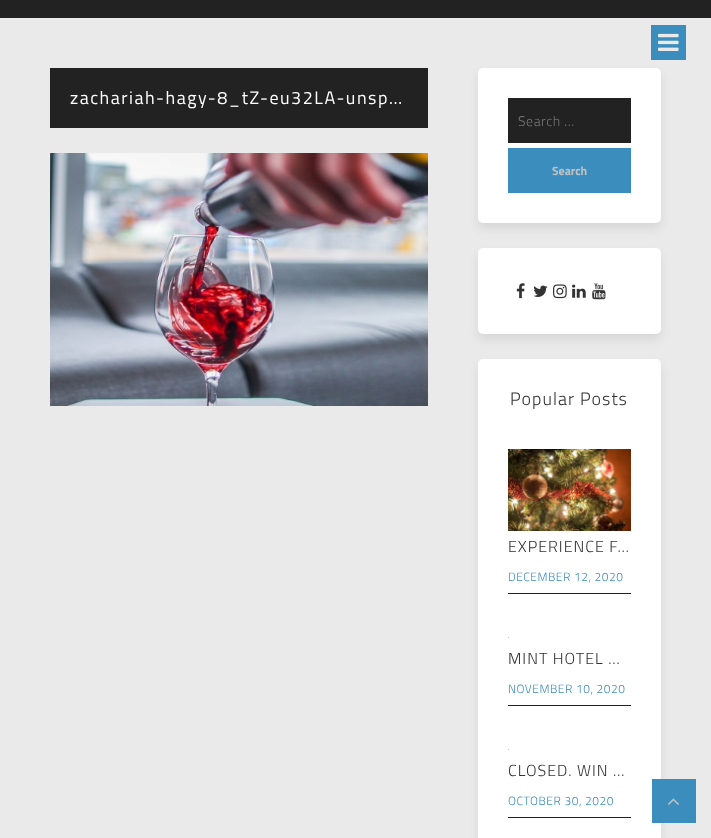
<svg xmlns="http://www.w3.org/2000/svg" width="711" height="838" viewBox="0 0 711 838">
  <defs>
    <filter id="blur1" x="-50%" y="-200%" width="200%" height="500%"><feGaussianBlur stdDeviation="5"/></filter>
  </defs>
  <rect width="100%" height="100%" fill="#222222"/>
  <rect x="0" y="18" width="711" height="820" fill="#eaeaea"/>
  <rect x="478" y="74" width="183" height="155" rx="5" fill="#000000" fill-opacity="0.08" filter="url(#blur1)"/>
  <rect x="651" y="25" width="35" height="35" fill="#3b8dbd"/>
  <image x="658" y="33" width="21" height="18" href="img1.png"/>
  <rect x="50" y="68" width="378" height="60" fill="#222222"/>
  <text x="70" y="104" font-family="Titillium Web" font-size="18" letter-spacing="1.5" fill="#ffffff">zachariah-hagy-8_tZ-eu32LA-unsp…</text>
  <image x="50" y="153" width="378" height="253" href="img2.png"/>
  <rect x="478" y="68" width="183" height="155" rx="5" fill="#ffffff"/>
  <rect x="508" y="98" width="123" height="45" fill="#222222"/>
  <text x="518" y="126" font-family="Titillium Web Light" font-size="14" font-weight="300" letter-spacing="0.5" fill="#757575">Search …</text>
  <rect x="508" y="148" width="123" height="45" fill="#3b8dbd"/>
  <text x="552" y="175" font-family="Titillium Web" font-size="12" font-weight="bold" fill="#c0c0c0">Search</text>
  <rect x="478" y="254" width="183" height="86" rx="5" fill="#000000" fill-opacity="0.08" filter="url(#blur1)"/>
  <rect x="478" y="248" width="183" height="86" rx="5" fill="#ffffff"/>
  <image x="516" y="283" width="9" height="16" href="img3.png"/>
  <image x="533" y="285" width="15" height="12" href="img4.png"/>
  <image x="553" y="284" width="14" height="15" href="img5.png"/>
  <image x="572" y="284" width="14" height="14" href="img6.png"/>
  <image x="592" y="283" width="14" height="17" href="img7.png"/>
  <rect x="478" y="365" width="183" height="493" rx="5" fill="#000000" fill-opacity="0.08" filter="url(#blur1)"/>
  <rect x="478" y="359" width="183" height="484" rx="5" fill="#ffffff"/>
  <text x="510" y="405" font-family="Titillium Web Light" font-size="18" font-weight="300" letter-spacing="1" fill="#333333">Popular Posts</text>
  <rect x="508" y="593" width="123" height="1" fill="#222222"/>
  <image x="508" y="449" width="123" height="82" href="img8.png"/>
  <text x="508" y="552" font-family="Titillium Web Light" font-size="16" font-weight="300" letter-spacing="1" fill="#333333">EXPERIENCE F…</text>
  <text x="508" y="581" font-family="Titillium Web Light" font-size="12" font-weight="300" letter-spacing="0.5" fill="#3b8dbd">DECEMBER 12, 2020</text>
  <rect x="508" y="705" width="123" height="1" fill="#222222"/>
  <rect x="508" y="637" width="1" height="1" fill="#c3c3c3"/>
  <text x="508" y="664" font-family="Titillium Web Light" font-size="16" font-weight="300" letter-spacing="1" fill="#333333">MINT HOTEL …</text>
  <text x="508" y="693" font-family="Titillium Web Light" font-size="12" font-weight="300" letter-spacing="0.5" fill="#3b8dbd">NOVEMBER 10, 2020</text>
  <rect x="508" y="817" width="123" height="1" fill="#222222"/>
  <rect x="508" y="749" width="1" height="1" fill="#c3c3c3"/>
  <text x="508" y="776" font-family="Titillium Web Light" font-size="16" font-weight="300" letter-spacing="1" fill="#333333">CLOSED. WIN …</text>
  <text x="508" y="805" font-family="Titillium Web Light" font-size="12" font-weight="300" letter-spacing="0.5" fill="#3b8dbd">OCTOBER 30, 2020</text>
  <rect x="652" y="779" width="44" height="44" fill="#3b8dbd"/>
  <image x="667" y="798" width="12" height="7" href="img9.png"/>
</svg>
